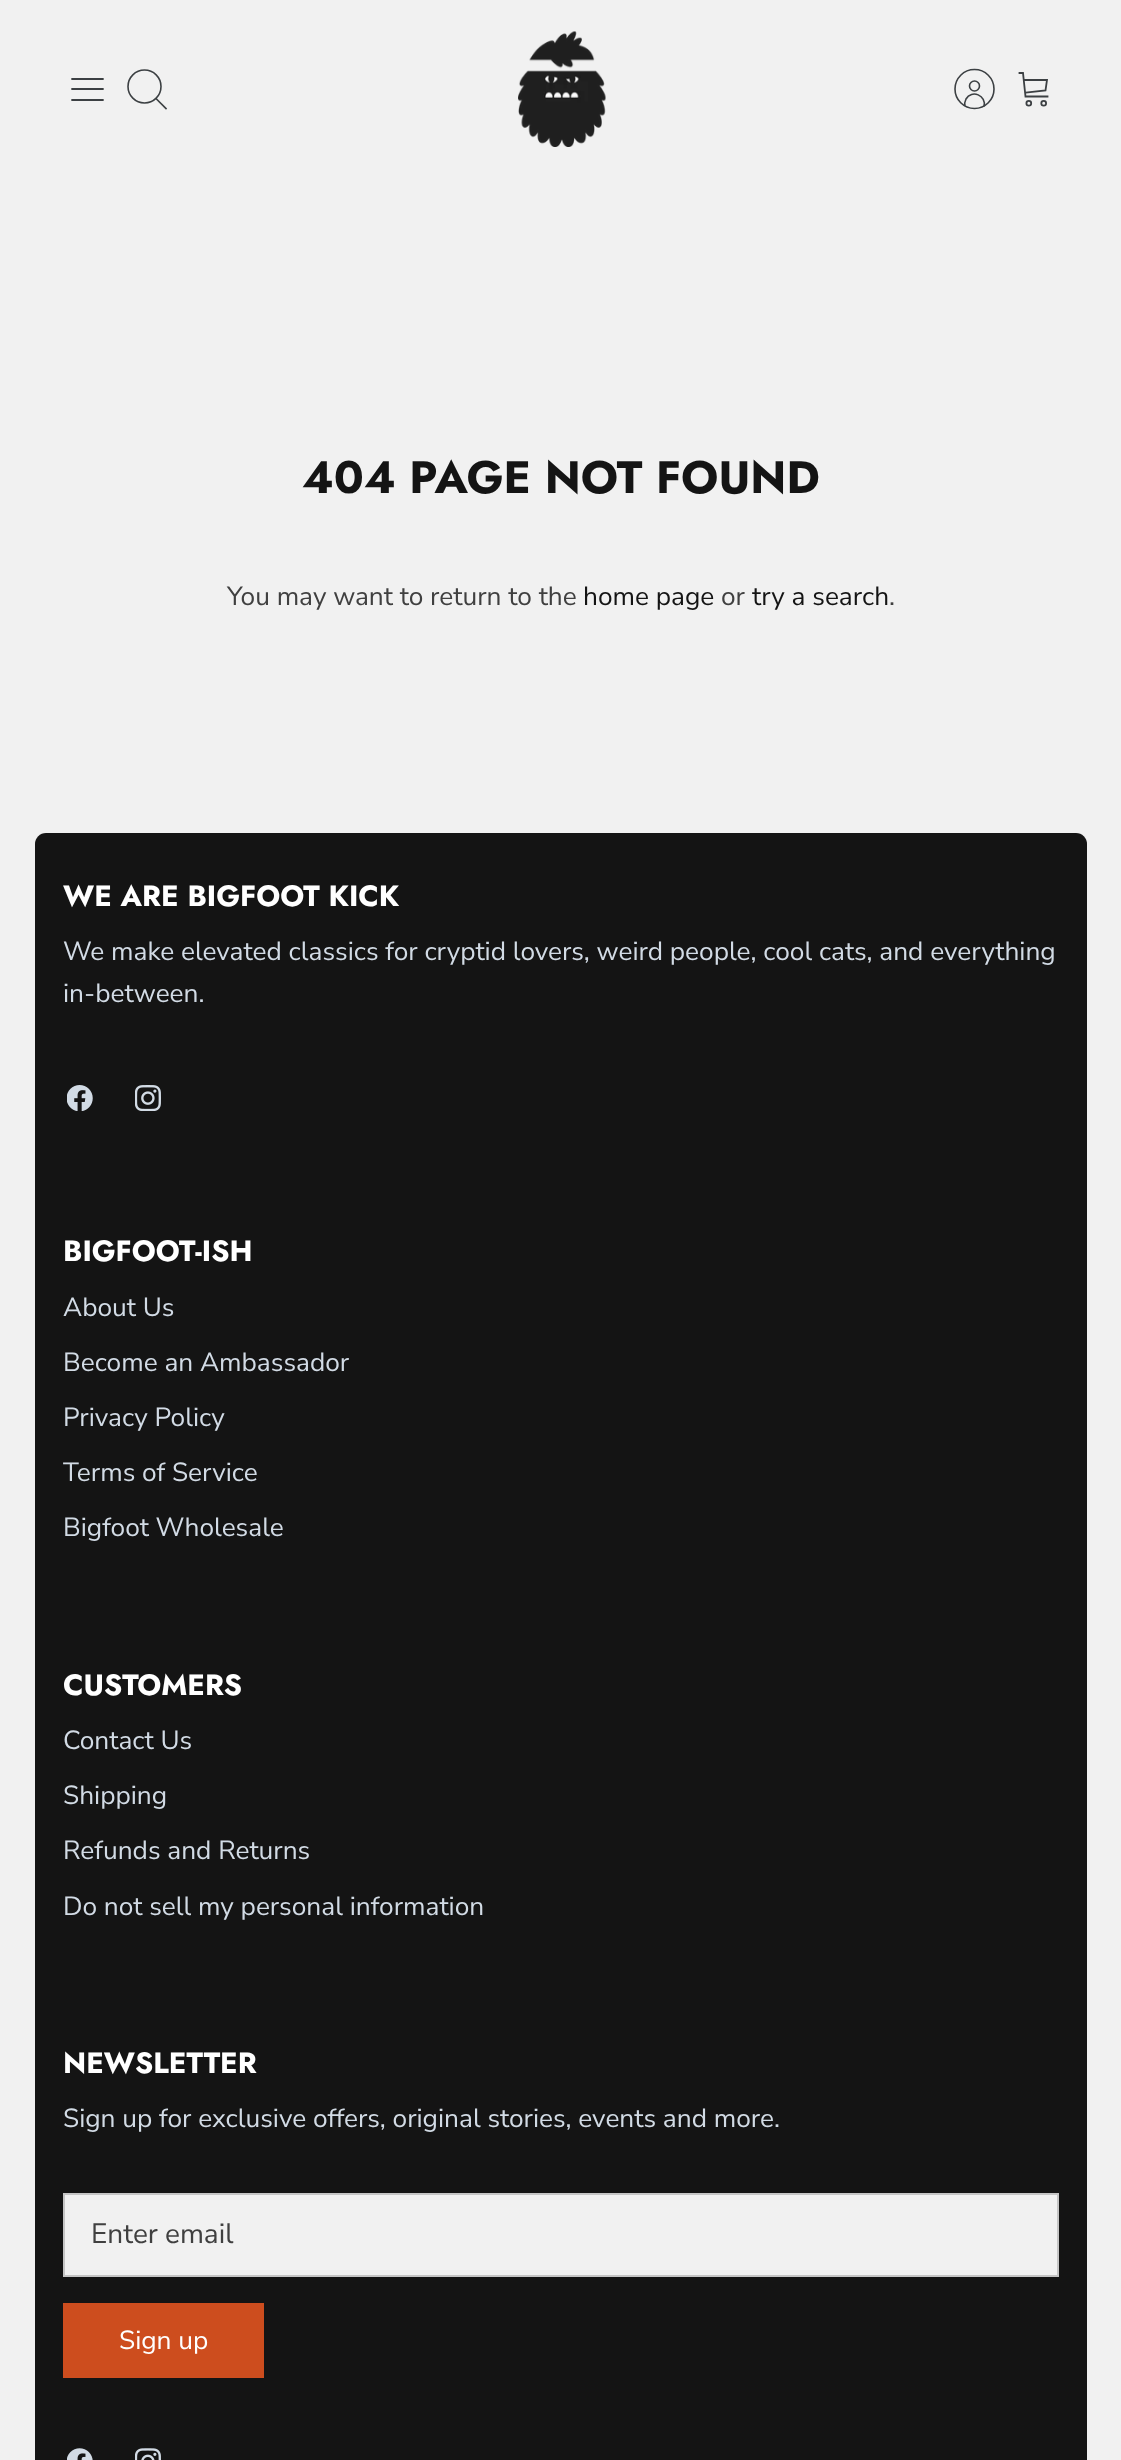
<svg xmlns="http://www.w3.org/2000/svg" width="1121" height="2460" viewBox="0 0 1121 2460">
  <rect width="100%" height="100%" fill="#f1f1f1"/>
  <path d="M72 89H103M72 79H103M72 100H103" fill="none" stroke="#3c4043" stroke-width="1.8" stroke-linecap="round" stroke-linejoin="round"/>
  <circle cx="144.5" cy="86.5" r="16.5" fill="none" stroke="#3c4043" stroke-width="1.6"/>
  <path d="M156.5 99L166 108.5" fill="none" stroke="#3c4043" stroke-width="1.6" stroke-linecap="square"/>
  <image x="518" y="31" width="88" height="116" href="img1.png"/>
  <path d="M984 106.5C987 95.5 971.5 89 966 99C965 101 964.5 104 965 106" fill="none" stroke="#3c4043" stroke-width="1.6"/>
  <circle cx="974.5" cy="86" r="5" fill="none" stroke="#3c4043" stroke-width="1.6"/>
  <circle cx="974.5" cy="89" r="19.5" fill="none" stroke="#3c4043" stroke-width="1.6"/>
  <path d="M1019.5 73H1023L1025.5 96.5H1047.5M1024 80H1047L1045.5 90.5L1026.5 92.5" fill="none" stroke="#3c4043" stroke-width="1.8" stroke-linecap="square"/>
  <circle cx="1028.8" cy="103.3" r="2.4" fill="none" stroke="#3c4043" stroke-width="1.8"/>
  <circle cx="1043.7" cy="103.3" r="2.4" fill="none" stroke="#3c4043" stroke-width="1.8"/>
  <text x="302" y="493" font-family="Jost" font-size="45.5" font-weight="bold" fill="#141414">404 PAGE NOT FOUND</text>
  <text x="227" y="605" font-family="Nunito Sans" font-size="26.25" fill="#404040">You may want to return to the</text>
  <text x="583" y="605" font-family="Nunito Sans" font-size="26.25" fill="#141414">home page</text>
  <text x="721" y="605" font-family="Nunito Sans" font-size="26.25" fill="#404040">or</text>
  <text x="752" y="605" font-family="Nunito Sans" font-size="26.25" fill="#141414">try a search</text>
  <text x="889" y="605" font-family="Nunito Sans" font-size="26.25" fill="#404040">.</text>
  <rect x="35" y="833" width="1052" height="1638" rx="11" fill="#141414"/>
  <text x="63" y="906" font-family="Jost" font-size="29.25" font-weight="bold" fill="#ffffff">WE ARE BIGFOOT KICK</text>
  <text x="63" y="960" font-family="Nunito Sans" font-size="26.25" fill="#d2dbe5">We make elevated classics for cryptid lovers, weird people, cool cats, and everything</text>
  <text x="63" y="1002" font-family="Nunito Sans" font-size="26.25" fill="#d2dbe5">in-between.</text>
  <image x="67" y="1085" width="26" height="26" href="img2.png"/>
  <image x="135" y="1085" width="26" height="26" href="img3.png"/>
  <text x="63" y="1261" font-family="Jost" font-size="29.25" font-weight="bold" fill="#ffffff">BIGFOOT-ISH</text>
  <text x="63" y="1316" font-family="Nunito Sans" font-size="26.25" fill="#d2dbe5">About Us</text>
  <text x="63" y="1371" font-family="Nunito Sans" font-size="26.25" fill="#d2dbe5">Become an Ambassador</text>
  <text x="63" y="1426" font-family="Nunito Sans" font-size="26.25" fill="#d2dbe5">Privacy Policy</text>
  <text x="63" y="1481" font-family="Nunito Sans" font-size="26.25" fill="#d2dbe5">Terms of Service</text>
  <text x="63" y="1536" font-family="Nunito Sans" font-size="26.25" fill="#d2dbe5">Bigfoot Wholesale</text>
  <text x="63" y="1695" font-family="Jost" font-size="29.25" font-weight="bold" fill="#ffffff">CUSTOMERS</text>
  <text x="63" y="1749" font-family="Nunito Sans" font-size="26.25" fill="#d2dbe5">Contact Us</text>
  <text x="63" y="1804" font-family="Nunito Sans" font-size="26.25" fill="#d2dbe5">Shipping</text>
  <text x="63" y="1859" font-family="Nunito Sans" font-size="26.25" fill="#d2dbe5">Refunds and Returns</text>
  <text x="63" y="1915" font-family="Nunito Sans" font-size="26.25" fill="#d2dbe5">Do not sell my personal information</text>
  <text x="63" y="2073" font-family="Jost" font-size="29.25" font-weight="bold" fill="#ffffff">NEWSLETTER</text>
  <text x="63" y="2127" font-family="Nunito Sans" font-size="26.25" fill="#d2dbe5">Sign up for exclusive offers, original stories, events and more.</text>
  <rect x="64" y="2194" width="994" height="82" fill="#f1f1f1" stroke="#c5c5c5" stroke-width="2"/>
  <text x="91" y="2243" font-family="Nunito Sans" font-size="28" fill="#404040">Enter email</text>
  <rect x="63" y="2303" width="201" height="75" fill="#cd4d1e"/>
  <text x="119" y="2349" font-family="Nunito Sans" font-size="26.25" fill="#ffffff">Sign up</text>
  <image x="67" y="2448" width="26" height="12" href="img4.png"/>
  <image x="135" y="2448" width="26" height="12" href="img5.png"/>
</svg>
